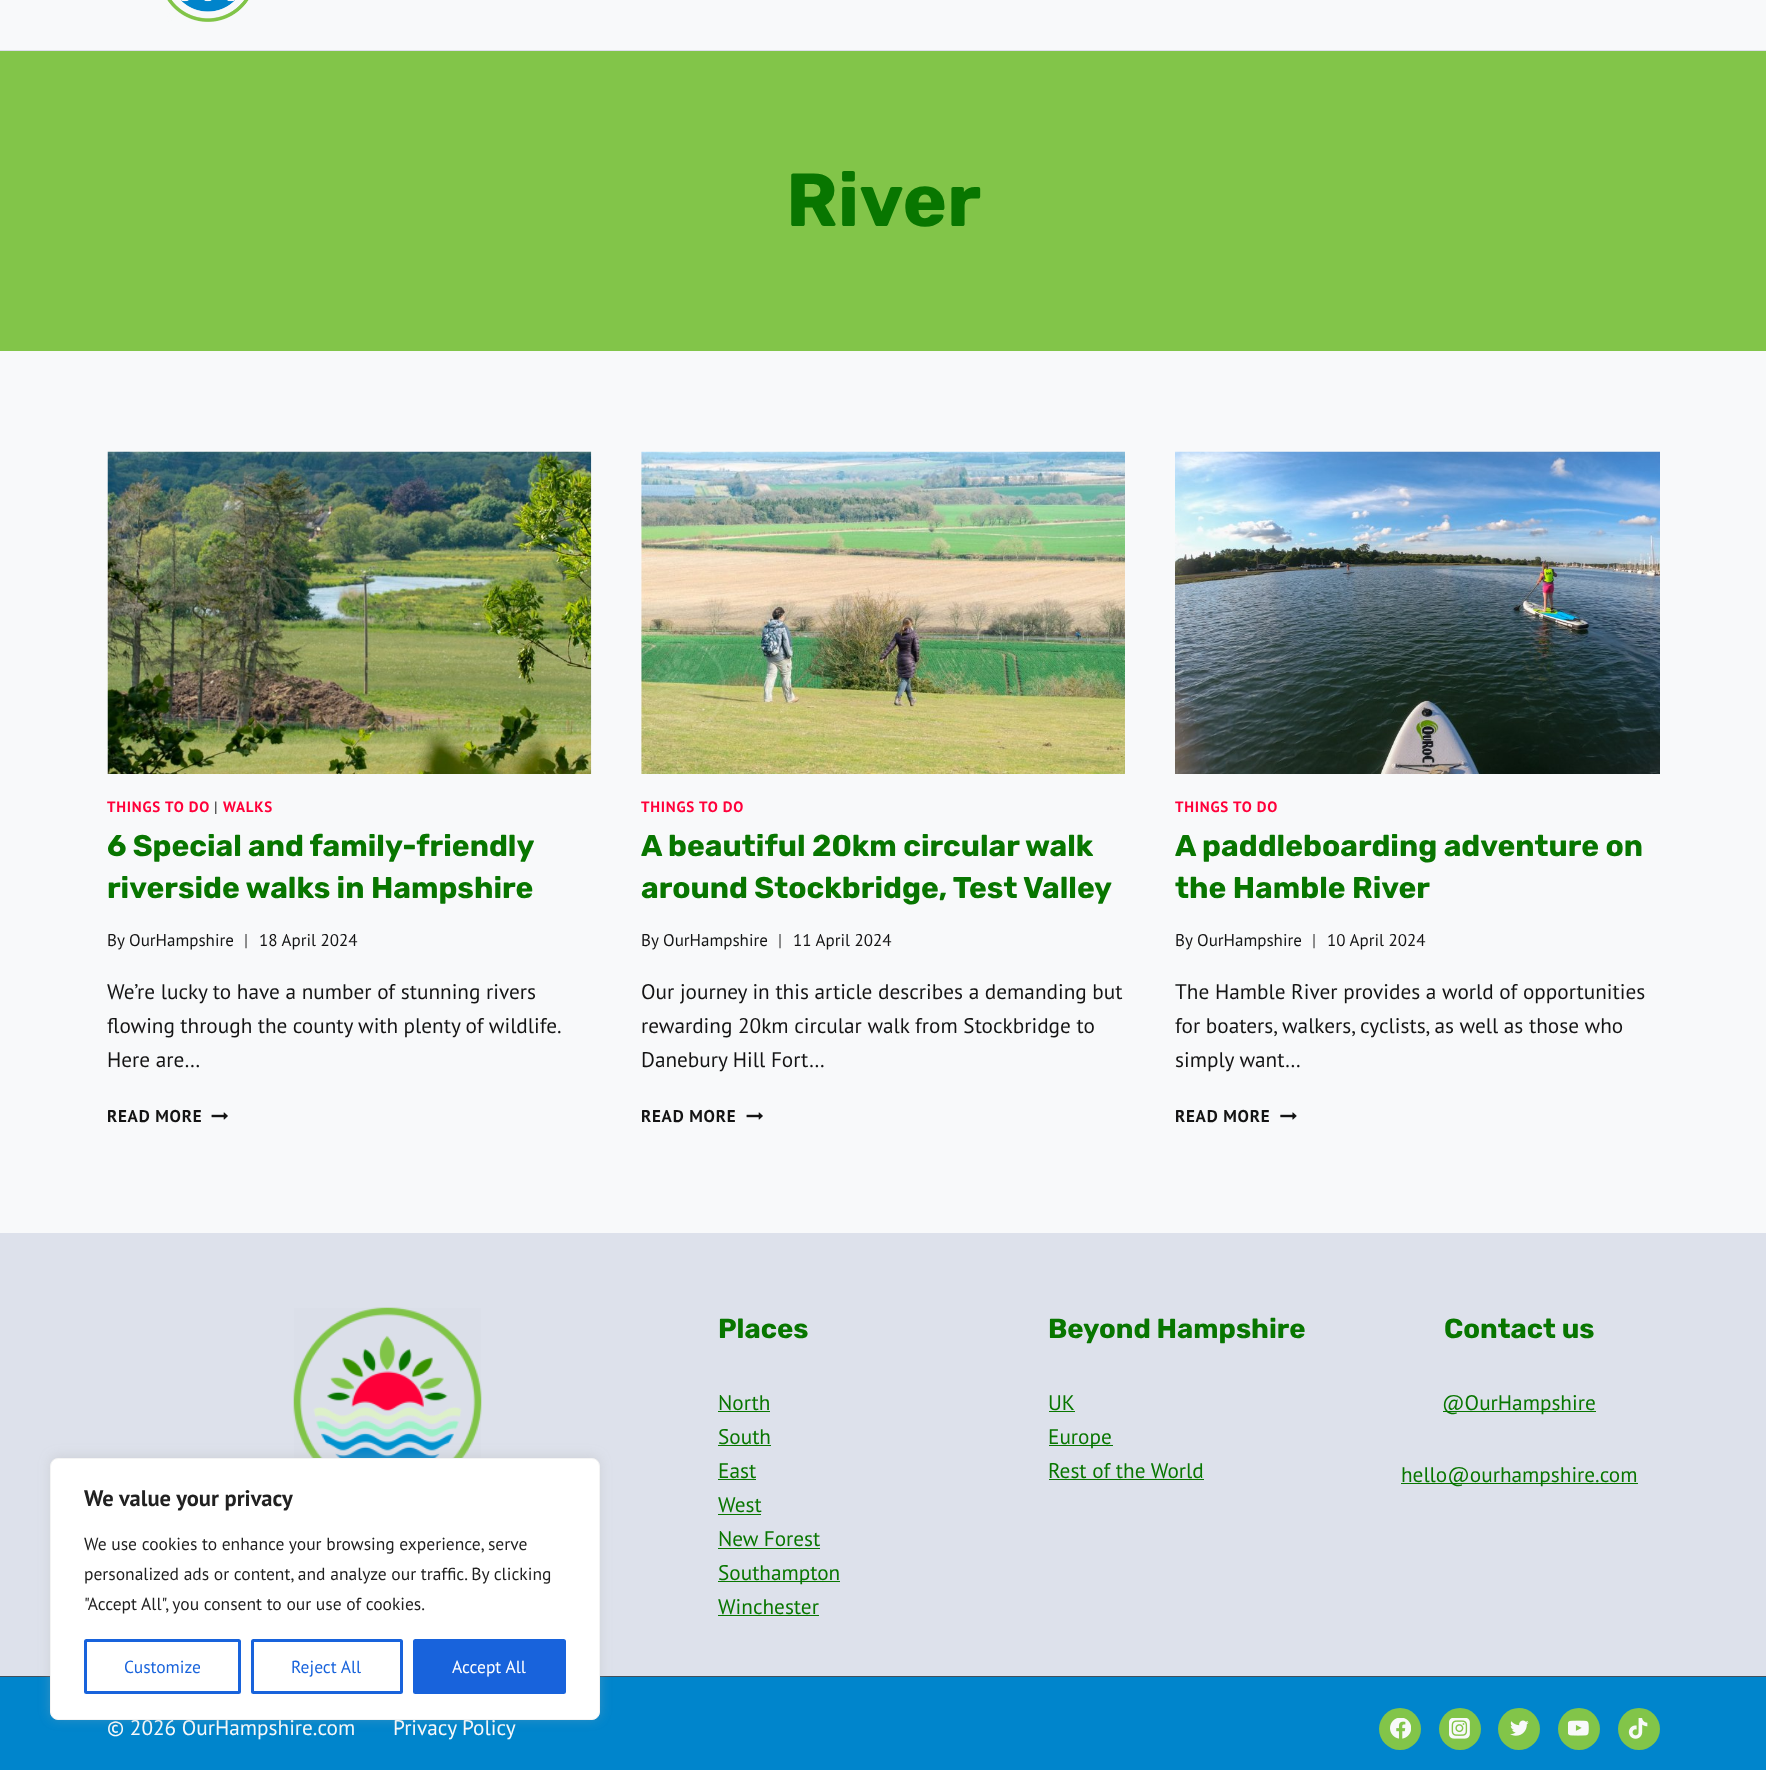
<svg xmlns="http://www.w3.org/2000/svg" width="1766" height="1770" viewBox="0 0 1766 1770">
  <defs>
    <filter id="blur1" x="-50%" y="-200%" width="200%" height="500%"><feGaussianBlur stdDeviation="6"/></filter>
  </defs>
  <rect width="100%" height="100%" fill="#f8f9fa"/>
  <rect x="0" y="50" width="1766" height="1" fill="#deddeb"/>
  <image x="167" y="0" width="82" height="22" href="img1.png"/>
  <rect x="0" y="51" width="1766" height="300" fill="#82c549"/>
  <text x="786" y="226" font-family="Rubik" font-size="75" font-weight="bold" fill="#087600">River</text>
  <image x="107" y="451" width="485" height="323" href="img2.png"/>
  <text x="107" y="812" font-family="PT Sans" font-size="15" font-weight="bold" letter-spacing="0.75" fill="#ff003a">THINGS TO DO</text>
  <text x="214" y="812" font-family="PT Sans" font-size="15" letter-spacing="0.75" fill="#141414">|</text>
  <text x="223" y="812" font-family="PT Sans" font-size="15" font-weight="bold" letter-spacing="0.75" fill="#ff003a">WALKS</text>
  <text x="107" y="856" word-spacing="-0.25" font-family="Rubik" font-size="30" font-weight="bold" fill="#087600">6 Special and family-friendly</text>
  <text x="107" y="898" font-family="Rubik" font-size="30" font-weight="bold" fill="#087600">riverside walks in Hampshire</text>
  <text x="107" y="946" font-family="PT Sans" font-size="17" fill="#141414">By</text>
  <text x="129" y="946" font-family="PT Sans" font-size="17" fill="#141414">OurHampshire</text>
  <text x="244" y="946" font-family="PT Sans" font-size="17" fill="#424242">|</text>
  <text x="259" y="946" font-family="PT Sans" font-size="17" fill="#141414">18 April 2024</text>
  <text x="107" y="999" font-family="PT Sans" font-size="21.25" fill="#141414">We’re lucky to have a number of stunning rivers</text>
  <text x="107" y="1033" word-spacing="-0.25" font-family="PT Sans" font-size="21.25" fill="#141414">flowing through the county with plenty of wildlife.</text>
  <text x="107" y="1067" font-family="PT Sans" font-size="21.25" fill="#141414">Here are…</text>
  <text x="107" y="1122" font-family="PT Sans" font-size="17" font-weight="bold" letter-spacing="0.75" fill="#141414">READ MORE</text>
  <image x="211" y="1112" width="17" height="8" href="img3.png"/>
  <image x="641" y="451" width="484" height="323" href="img4.png"/>
  <text x="641" y="812" font-family="PT Sans" font-size="15" font-weight="bold" letter-spacing="0.75" fill="#ff003a">THINGS TO DO</text>
  <text x="641" y="856" font-family="Rubik" font-size="30" font-weight="bold" fill="#087600">A beautiful 20km circular walk</text>
  <text x="641" y="898" font-family="Rubik" font-size="30" font-weight="bold" fill="#087600">around Stockbridge, Test Valley</text>
  <text x="641" y="946" font-family="PT Sans" font-size="17" fill="#141414">By</text>
  <text x="663" y="946" font-family="PT Sans" font-size="17" fill="#141414">OurHampshire</text>
  <text x="778" y="946" font-family="PT Sans" font-size="17" fill="#424242">|</text>
  <text x="793" y="946" font-family="PT Sans" font-size="17" fill="#141414">11 April 2024</text>
  <text x="641" y="999" font-family="PT Sans" font-size="21.25" fill="#141414">Our journey in this article describes a demanding but</text>
  <text x="641" y="1033" font-family="PT Sans" font-size="21.25" fill="#141414">rewarding 20km circular walk from Stockbridge to</text>
  <text x="641" y="1067" font-family="PT Sans" font-size="21.25" fill="#141414">Danebury Hill Fort…</text>
  <text x="641" y="1122" font-family="PT Sans" font-size="17" font-weight="bold" letter-spacing="0.75" fill="#141414">READ MORE</text>
  <image x="746" y="1112" width="17" height="8" href="img3.png"/>
  <image x="1175" y="451" width="485" height="323" href="img5.png"/>
  <text x="1175" y="812" font-family="PT Sans" font-size="15" font-weight="bold" letter-spacing="0.75" fill="#ff003a">THINGS TO DO</text>
  <text x="1175" y="856" font-family="Rubik" font-size="30" font-weight="bold" fill="#087600">A paddleboarding adventure on</text>
  <text x="1175" y="898" font-family="Rubik" font-size="30" font-weight="bold" fill="#087600">the Hamble River</text>
  <text x="1175" y="946" font-family="PT Sans" font-size="17" fill="#141414">By</text>
  <text x="1197" y="946" font-family="PT Sans" font-size="17" fill="#141414">OurHampshire</text>
  <text x="1312" y="946" font-family="PT Sans" font-size="17" fill="#424242">|</text>
  <text x="1327" y="946" font-family="PT Sans" font-size="17" fill="#141414">10 April 2024</text>
  <text x="1175" y="999" font-family="PT Sans" font-size="21.25" fill="#141414">The Hamble River provides a world of opportunities</text>
  <text x="1175" y="1033" font-family="PT Sans" font-size="21.25" fill="#141414">for boaters, walkers, cyclists, as well as those who</text>
  <text x="1175" y="1067" font-family="PT Sans" font-size="21.25" fill="#141414">simply want…</text>
  <text x="1175" y="1122" font-family="PT Sans" font-size="17" font-weight="bold" letter-spacing="0.75" fill="#141414">READ MORE</text>
  <image x="1280" y="1112" width="17" height="8" href="img6.png"/>
  <rect x="0" y="1233" width="1766" height="443" fill="#dde1eb"/>
  <image x="293" y="1307" width="189" height="151" href="img7.png"/>
  <text x="718" y="1338" font-family="Rubik" font-size="27.5" font-weight="bold" fill="#087600">Places</text>
  <text x="718" y="1410" font-family="PT Sans" font-size="21.25" fill="#087600">North</text>
  <rect x="718" y="1411" width="52" height="1" fill="#087600"/>
  <text x="718" y="1444" font-family="PT Sans" font-size="21.25" fill="#087600">South</text>
  <rect x="718" y="1445" width="53" height="1" fill="#087600"/>
  <text x="718" y="1478" font-family="PT Sans" font-size="21.25" fill="#087600">East</text>
  <rect x="718" y="1479" width="38" height="1" fill="#087600"/>
  <text x="718" y="1512" font-family="PT Sans" font-size="21.25" fill="#087600">West</text>
  <rect x="718" y="1514" width="43" height="1" fill="#087600"/>
  <text x="718" y="1546" font-family="PT Sans" font-size="21.25" fill="#087600">New Forest</text>
  <rect x="718" y="1548" width="102" height="1" fill="#087600"/>
  <rect x="718" y="1581" width="122" height="1" fill="#087600"/>
  <text x="718" y="1580" font-family="PT Sans" font-size="21.25" fill="#087600">Southampton</text>
  <text x="718" y="1614" font-family="PT Sans" font-size="21.25" fill="#087600">Winchester</text>
  <rect x="718" y="1615" width="101" height="1" fill="#087600"/>
  <text x="1048" y="1338" font-family="Rubik" font-size="27.5" font-weight="bold" fill="#087600">Beyond Hampshire</text>
  <text x="1048" y="1410" font-family="PT Sans" font-size="21.25" fill="#087600">UK</text>
  <rect x="1049" y="1411" width="26" height="1" fill="#087600"/>
  <rect x="1049" y="1445" width="64" height="1" fill="#087600"/>
  <text x="1048" y="1444" font-family="PT Sans" font-size="21.25" fill="#087600">Europe</text>
  <text x="1048" y="1478" font-family="PT Sans" font-size="21.25" fill="#087600">Rest of the World</text>
  <rect x="1049" y="1479" width="155" height="1" fill="#087600"/>
  <text x="1444" y="1338" font-family="Rubik" font-size="27.5" font-weight="bold" fill="#087600">Contact us</text>
  <rect x="1443" y="1411" width="153" height="1" fill="#087600"/>
  <text x="1442" y="1410" font-family="PT Sans" font-size="21.25" fill="#087600">@OurHampshire</text>
  <rect x="1401" y="1483" width="237" height="1" fill="#087600"/>
  <text x="1401" y="1482" font-family="PT Sans" font-size="21.25" fill="#087600">hello@ourhampshire.com</text>
  <rect x="0" y="1677" width="1766" height="93" fill="#0085cc"/>
  <rect x="0" y="1676" width="1766" height="1" fill="#42505c"/>
  <text x="107" y="1735" font-family="PT Sans" font-size="21.25" fill="#f8f9fa">© 2026 OurHampshire.com</text>
  <text x="393" y="1735" font-family="PT Sans" font-size="21.25" fill="#f8f9fa">Privacy Policy</text>
  <circle cx="1400" cy="1729" r="21" fill="#82c549"/>
  <image x="1390" y="1718" width="21" height="21" href="img8.png"/>
  <circle cx="1460" cy="1729" r="21" fill="#82c549"/>
  <image x="1449" y="1718" width="21" height="21" href="img9.png"/>
  <circle cx="1519" cy="1729" r="21" fill="#82c549"/>
  <image x="1510" y="1720" width="19" height="16" href="img10.png"/>
  <circle cx="1579" cy="1729" r="21" fill="#82c549"/>
  <image x="1568" y="1720" width="21" height="16" href="img11.png"/>
  <circle cx="1639" cy="1729" r="21" fill="#82c549"/>
  <image x="1628" y="1718" width="20" height="21" href="img12.png"/>
  <rect x="50" y="1456" width="550" height="263" rx="8" fill="#acabab" fill-opacity="0.3" filter="url(#blur1)"/>
  <rect x="50.5" y="1458.5" width="549" height="261" rx="7.5" fill="#ffffff" stroke="#f4f4f4"/>
  <text x="84" y="1506" font-family="PT Sans" font-size="22.5" font-weight="bold" fill="#212121">We value your privacy</text>
  <text x="84" y="1550" font-family="PT Sans" font-size="17.5" fill="#212121">We use cookies to enhance your browsing experience, serve</text>
  <text x="84" y="1580" font-family="PT Sans" font-size="17.5" fill="#212121">personalized ads or content, and analyze our traffic. By clicking</text>
  <text x="84" y="1610" font-family="PT Sans" font-size="17.5" fill="#212121">"Accept All", you consent to our use of cookies.</text>
  <rect x="85.5" y="1640.5" width="154" height="52" rx="1" fill="none" stroke="#1863dc" stroke-width="3"/>
  <text x="124" y="1673" font-family="PT Sans" font-size="17.5" fill="#1863dc">Customize</text>
  <rect x="252.5" y="1640.5" width="149" height="52" rx="1" fill="none" stroke="#1863dc" stroke-width="3"/>
  <text x="291" y="1673" font-family="PT Sans" font-size="17.5" fill="#1863dc">Reject All</text>
  <rect x="414.5" y="1640.5" width="150" height="52" rx="1" fill="#1863dc" stroke="#1863dc" stroke-width="3"/>
  <text x="452" y="1673" font-family="PT Sans" font-size="17.5" fill="#ffffff">Accept All</text>
</svg>
